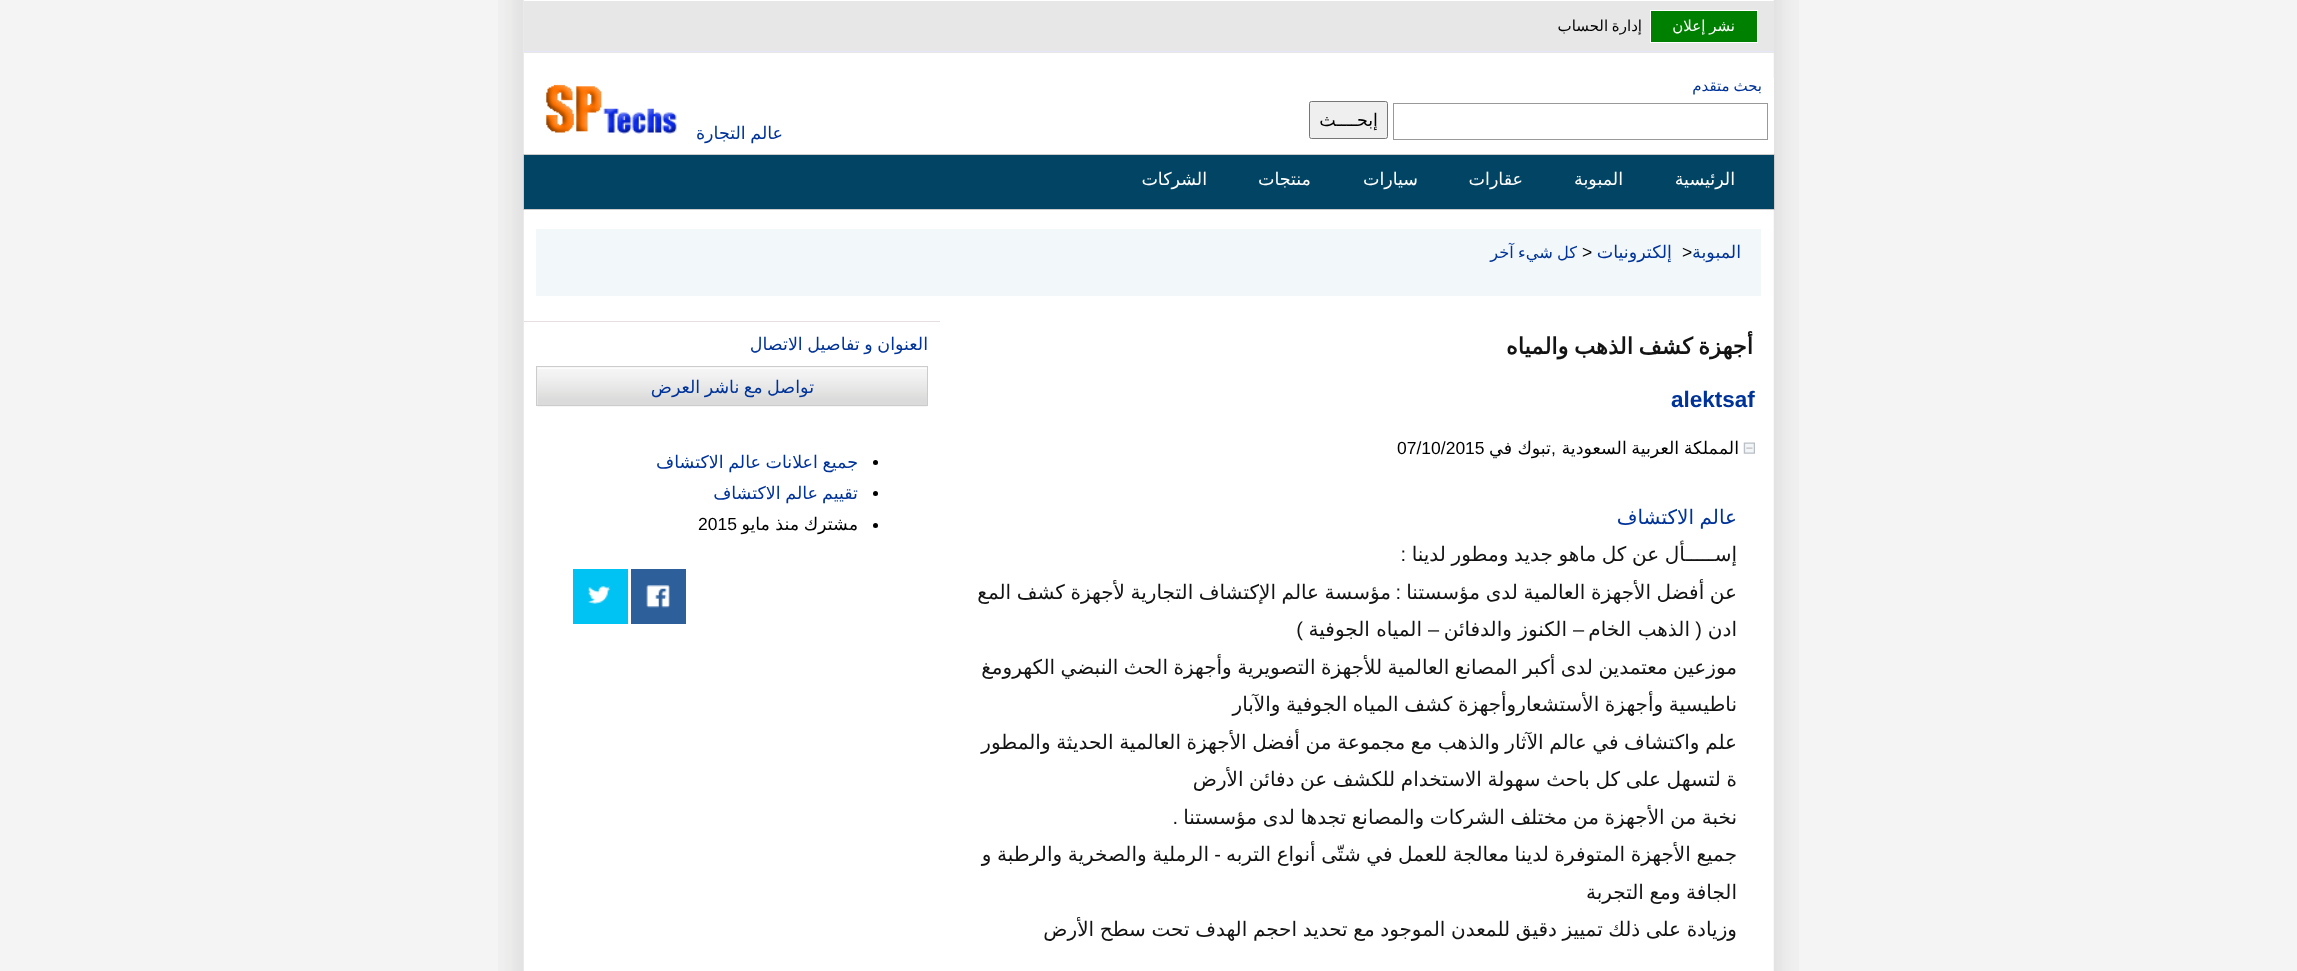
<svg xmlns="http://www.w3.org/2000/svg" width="2297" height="971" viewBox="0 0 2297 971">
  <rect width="100%" height="100%" fill="#f4f4f4"/>
  <image x="498" y="0" width="1301" height="971" href="img1.png"/>
  <rect x="524" y="1" width="1250" height="52" fill="#e7e7e7"/>
  <rect x="524" y="51" width="1250" height="1" fill="#e6e6fa"/>
  <rect x="1650.5" y="10.5" width="107" height="32" fill="#008000" stroke="#ffffff"/>
  <text x="1735" y="31" word-spacing="-1" font-family="DejaVu Sans" font-size="15" direction="rtl" fill="#ffffff">نشر إعلان</text>
  <text x="1642" y="31" word-spacing="-1" font-family="DejaVu Sans" font-size="15" direction="rtl" fill="#000000">إدارة الحساب</text>
  <rect x="1773" y="78" width="1" height="75" fill="#ffffff"/>
  <text x="1762" y="91" word-spacing="-1" font-family="DejaVu Sans" font-size="15" direction="rtl" fill="#003399">بحث متقدم</text>
  <rect x="1393.5" y="103.5" width="374" height="36" fill="none" stroke="#999999"/>
  <rect x="1309.5" y="101.5" width="78" height="37" rx="2" fill="#efefef" stroke="#767676"/>
  <text x="1378" y="126" font-family="DejaVu Sans" font-size="17.5" direction="rtl" fill="#000000">إبحــــث</text>
  <text x="783" y="139" word-spacing="-1" font-family="DejaVu Sans" font-size="17.5" direction="rtl" fill="#003399">عالم التجارة</text>
  <image x="546" y="84" width="131" height="50" href="img2.png"/>
  <rect x="523.5" y="154.5" width="1251" height="55" fill="#014464" stroke="#cccccc"/>
  <text x="1735" y="185" font-family="DejaVu Sans" font-size="17.5" direction="rtl" fill="#ffffff">الرئيسية</text>
  <text x="1623" y="185" font-family="DejaVu Sans" font-size="17.5" direction="rtl" fill="#ffffff">المبوبة</text>
  <text x="1523" y="185" font-family="DejaVu Sans" font-size="17.5" direction="rtl" fill="#ffffff">عقارات</text>
  <text x="1418" y="185" font-family="DejaVu Sans" font-size="17.5" direction="rtl" fill="#ffffff">سيارات</text>
  <text x="1311" y="185" font-family="DejaVu Sans" font-size="17.5" direction="rtl" fill="#ffffff">منتجات</text>
  <text x="1207" y="185" font-family="DejaVu Sans" font-size="17.5" direction="rtl" fill="#ffffff">الشركات</text>
  <rect x="536" y="229" width="1225" height="67" fill="#f2f7f9"/>
  <text x="1741" y="258" font-family="DejaVu Sans" font-size="17.5" direction="rtl" fill="#003399">المبوبة</text>
  <text x="1682" y="258" font-family="Liberation Sans" font-size="17.5" fill="#000000">&gt;</text>
  <text x="1672" y="258" font-family="DejaVu Sans" font-size="17.5" direction="rtl" fill="#003399">إلكترونيات</text>
  <text x="1582" y="258" font-family="Liberation Sans" font-size="17.5" fill="#000000">&gt;</text>
  <text x="1577" y="258" word-spacing="-1" font-family="DejaVu Sans" font-size="16.25" direction="rtl" fill="#003399">كل شيء آخر</text>
  <text x="1753" y="354" word-spacing="-1.5" font-family="DejaVu Sans" font-size="22.5" font-weight="bold" direction="rtl" fill="#131313">أجهزة كشف الذهب والمياه</text>
  <text x="1671" y="407" font-family="Liberation Sans" font-size="22.5" font-weight="bold" fill="#003399">alektsaf</text>
  <image x="1743" y="442" width="12" height="12" href="img3.png"/>
  <text x="1739" y="454" word-spacing="-1" font-family="DejaVu Sans" font-size="17.5" direction="rtl" fill="#000000">المملكة العربية السعودية</text>
  <text x="1551" y="454" font-family="DejaVu Sans" font-size="17.5" direction="rtl" fill="#000000">تبوك</text>
  <text x="1512" y="454" font-family="DejaVu Sans" font-size="17.5" direction="rtl" fill="#000000">في</text>
  <text x="1397" y="454" font-family="Liberation Sans" font-size="17.5" fill="#000000">07/10/2015</text>
  <text x="1551" y="454" font-family="Liberation Sans" font-size="17.5" fill="#000000">,</text>
  <text x="1737" y="524" word-spacing="-0.75" font-family="DejaVu Sans" font-size="20" direction="rtl" fill="#003399">عالم الاكتشاف</text>
  <text x="1737" y="561" word-spacing="-0.75" font-family="DejaVu Sans" font-size="20" direction="rtl" fill="#131313">إســـــأل عن كل ماهو جديد ومطور لدينا</text>
  <text x="1406" y="561" font-family="Liberation Sans" font-size="20" direction="rtl" fill="#131313">:</text>
  <text x="1737" y="599" word-spacing="-0.75" font-family="DejaVu Sans" font-size="20" direction="rtl" fill="#131313">عن أفضل الأجهزة العالمية لدى مؤسستنا</text>
  <text x="1401" y="599" font-family="Liberation Sans" font-size="20" direction="rtl" fill="#131313">:</text>
  <text x="1391" y="599" word-spacing="-0.75" font-family="DejaVu Sans" font-size="20" direction="rtl" fill="#131313">مؤسسة عالم الإكتشاف التجارية لأجهزة كشف المع</text>
  <text x="1737" y="636" font-family="DejaVu Sans" font-size="20" direction="rtl" fill="#131313">ادن</text>
  <text x="1702" y="636" font-family="Liberation Sans" font-size="20" direction="rtl" fill="#131313">(</text>
  <text x="1690" y="636" font-family="DejaVu Sans" font-size="20" direction="rtl" fill="#131313">الذهب الخام</text>
  <text x="1584" y="636" font-family="Liberation Sans" font-size="20" direction="rtl" fill="#131313">–</text>
  <text x="1567" y="636" font-family="DejaVu Sans" font-size="20" direction="rtl" fill="#131313">الكنوز والدفائن</text>
  <text x="1439" y="636" font-family="Liberation Sans" font-size="20" direction="rtl" fill="#131313">–</text>
  <text x="1422" y="636" font-family="DejaVu Sans" font-size="20" direction="rtl" fill="#131313">المياه الجوفية</text>
  <text x="1303" y="636" font-family="Liberation Sans" font-size="20" direction="rtl" fill="#131313">)</text>
  <text x="1737" y="674" word-spacing="-0.9" font-family="DejaVu Sans" font-size="20" direction="rtl" fill="#131313">موزعين معتمدين لدى أكبر المصانع العالمية للأجهزة التصويرية وأجهزة الحث النبضي الكهرومغ</text>
  <text x="1737" y="711" word-spacing="-0.75" font-family="DejaVu Sans" font-size="20" direction="rtl" fill="#131313">ناطيسية وأجهزة الأستشعاروأجهزة كشف المياه الجوفية والآبار</text>
  <text x="1737" y="749" word-spacing="-0.75" font-family="DejaVu Sans" font-size="20" direction="rtl" fill="#131313">علم واكتشاف في عالم الآثار والذهب مع مجموعة من أفضل الأجهزة العالمية الحديثة والمطور</text>
  <text x="1737" y="786" word-spacing="-0.75" font-family="DejaVu Sans" font-size="20" direction="rtl" fill="#131313">ة لتسهل على كل باحث سهولة الاستخدام للكشف عن دفائن الأرض</text>
  <text x="1737" y="824" word-spacing="-0.75" font-family="DejaVu Sans" font-size="20" direction="rtl" fill="#131313">نخبة من الأجهزة من مختلف الشركات والمصانع تجدها لدى مؤسستنا</text>
  <text x="1178" y="824" font-family="Liberation Sans" font-size="20" direction="rtl" fill="#131313">.</text>
  <text x="1737" y="861" word-spacing="-0.75" font-family="DejaVu Sans" font-size="20" direction="rtl" fill="#131313">جميع الأجهزة المتوفرة لدينا معالجة للعمل في شتّى أنواع التربه</text>
  <text x="1221" y="861" font-family="Liberation Sans" font-size="20" direction="rtl" fill="#131313">-</text>
  <text x="1209" y="861" word-spacing="-0.75" font-family="DejaVu Sans" font-size="20" direction="rtl" fill="#131313">الرملية والصخرية والرطبة و</text>
  <text x="1737" y="899" word-spacing="-0.75" font-family="DejaVu Sans" font-size="20" direction="rtl" fill="#131313">الجافة ومع التجربة</text>
  <text x="1737" y="936" word-spacing="-0.75" font-family="DejaVu Sans" font-size="20" direction="rtl" fill="#131313">وزيادة على ذلك تمييز دقيق للمعدن الموجود مع تحديد احجم الهدف تحت سطح الأرض</text>
  <rect x="524" y="321" width="416" height="1" fill="#e6dfdf"/>
  <text x="928" y="350" word-spacing="-1" font-family="DejaVu Sans" font-size="17.5" direction="rtl" fill="#003399">العنوان و تفاصيل الاتصال</text>
  <rect x="537" y="367" width="390" height="38" fill="#eeeeee"/>
  <image x="537" y="367" width="391" height="40" href="img4.png"/>
  <rect x="536.5" y="366.5" width="391" height="39" fill="none" stroke="#cccccc"/>
  <text x="814" y="393" word-spacing="-1" font-family="DejaVu Sans" font-size="17.5" direction="rtl" fill="#003399">تواصل مع ناشر العرض</text>
  <circle cx="875.5" cy="462.5" r="2.5" fill="#000000"/>
  <text x="858" y="468" word-spacing="-1" font-family="DejaVu Sans" font-size="17.5" direction="rtl" fill="#003399">جميع اعلانات عالم الاكتشاف</text>
  <circle cx="875.5" cy="493.5" r="2.5" fill="#000000"/>
  <text x="858" y="499" font-family="DejaVu Sans" font-size="17.5" direction="rtl" fill="#003399">تقييم</text>
  <text x="818" y="499" word-spacing="-1" font-family="DejaVu Sans" font-size="17.5" direction="rtl" fill="#003399">عالم الاكتشاف</text>
  <circle cx="875.5" cy="525.5" r="2.5" fill="#000000"/>
  <text x="858" y="530" word-spacing="-1" font-family="DejaVu Sans" font-size="17.5" direction="rtl" fill="#000000">مشترك منذ</text>
  <text x="770" y="530" font-family="DejaVu Sans" font-size="17.5" direction="rtl" fill="#000000">مايو</text>
  <text x="698" y="530" font-family="Liberation Sans" font-size="17.5" fill="#000000">2015</text>
  <rect x="631" y="569" width="55" height="55" fill="#2d5f9a"/>
  <image x="646" y="585" width="24" height="23" href="img5.png"/>
  <rect x="573" y="569" width="55" height="55" fill="#00c3f3"/>
  <image x="587" y="586" width="24" height="18" href="img6.png"/>
</svg>
